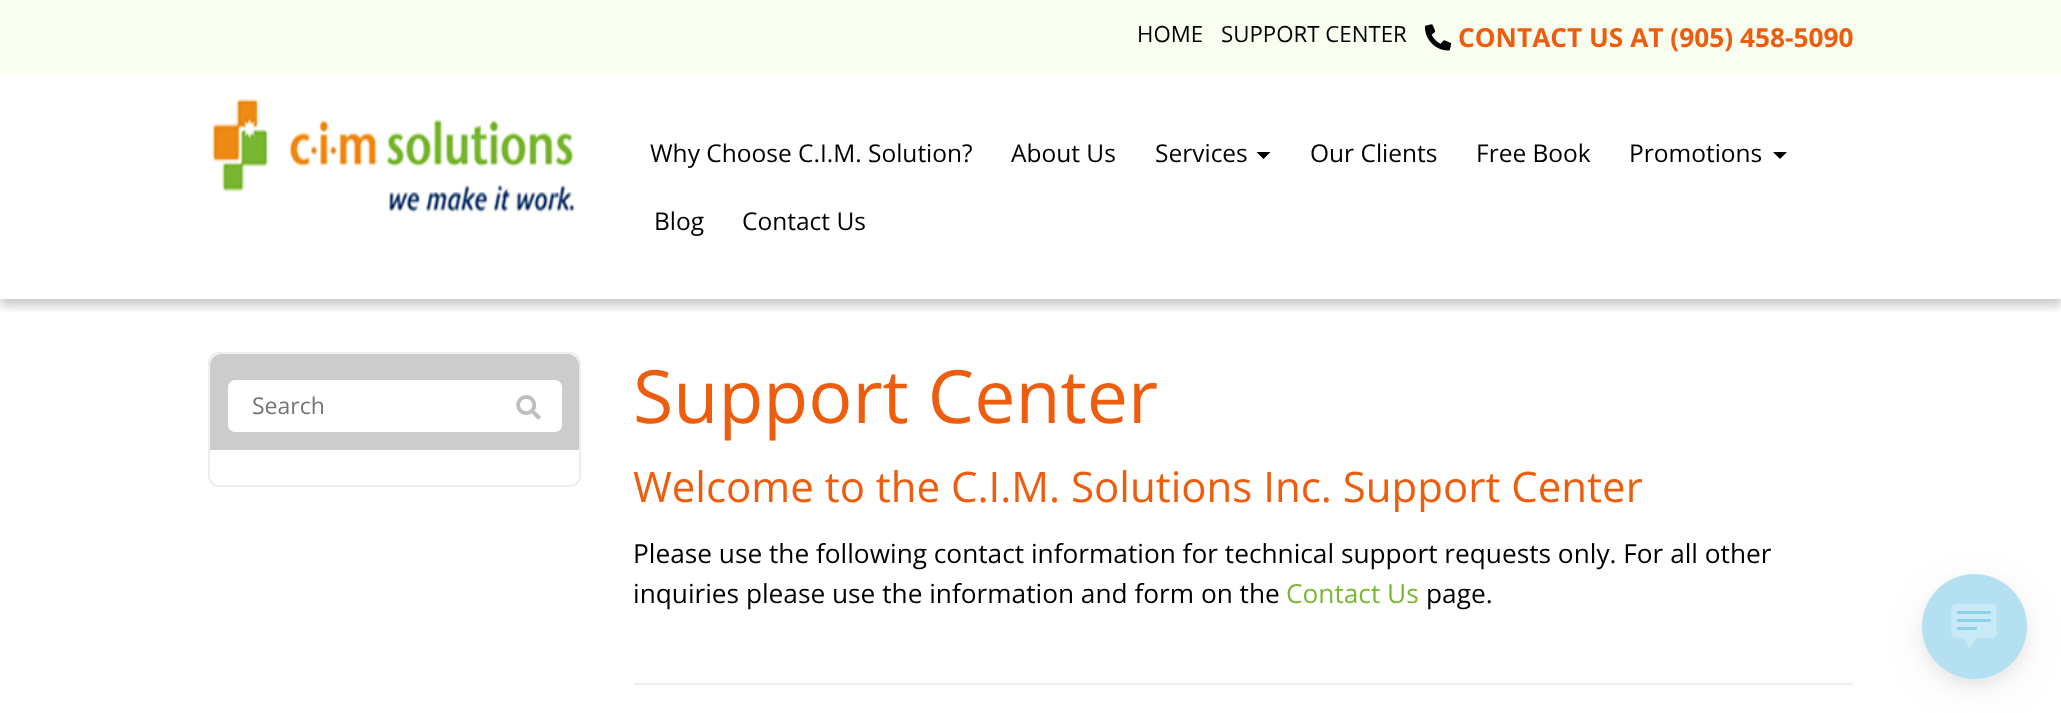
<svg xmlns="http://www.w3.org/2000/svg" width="2061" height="713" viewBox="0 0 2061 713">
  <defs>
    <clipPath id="clip1"><rect x="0" y="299" width="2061" height="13"/></clipPath>
    <filter id="blur1" x="-50%" y="-200%" width="200%" height="500%"><feGaussianBlur stdDeviation="5"/></filter>
    <filter id="blur2" x="-50%" y="-200%" width="200%" height="500%"><feGaussianBlur stdDeviation="17.5"/></filter>
    <filter id="blur3" x="-50%" y="-200%" width="200%" height="500%"><feGaussianBlur stdDeviation="7"/></filter>
  </defs>
  <rect width="100%" height="100%" fill="#ffffff"/>
  <rect x="0" y="0" width="2061" height="75" fill="#f8fff1"/>
  <text x="1137" y="42" font-family="Open Sans" font-size="22.25" fill="#000000">HOME</text>
  <text x="1221" y="42" font-family="Open Sans" font-size="22.25" fill="#000000">SUPPORT CENTER</text>
  <image x="1424" y="24" width="28" height="27" href="img1.png"/>
  <text x="1458" y="47" font-family="Open Sans" font-size="26.25" font-weight="bold" fill="#ee5d0e">CONTACT US AT (905) 458-5090</text>
  <g clip-path="url(#clip1)">
    <rect x="0" y="82" width="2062" height="224" fill="#000000" fill-opacity="0.2" filter="url(#blur1)"/>
  </g>
  <image x="212" y="98" width="363" height="115" href="img2.png"/>
  <text x="650" y="162" font-family="Open Sans" font-size="24.5" fill="#000000">Why Choose C.I.M. Solution?</text>
  <text x="1011" y="162" font-family="Open Sans" font-size="24.5" fill="#000000">About Us</text>
  <text x="1155" y="162" font-family="Open Sans" font-size="24.5" fill="#000000">Services</text>
  <path d="M1256.5 152H1270.5L1263.5 159Z" fill="#000000"/>
  <text x="1310" y="162" font-family="Open Sans" font-size="24.5" fill="#000000">Our Clients</text>
  <text x="1476" y="162" font-family="Open Sans" font-size="24.5" fill="#000000">Free Book</text>
  <text x="1629" y="162" font-family="Open Sans" font-size="24.5" fill="#000000">Promotions</text>
  <path d="M1773 152H1787L1780 159Z" fill="#000000"/>
  <text x="654" y="230" font-family="Open Sans" font-size="24.5" fill="#000000">Blog</text>
  <text x="742" y="230" font-family="Open Sans" font-size="24.5" fill="#000000">Contact Us</text>
  <rect x="209" y="353" width="371" height="133" rx="10" fill="none" stroke="#eeeeee" stroke-width="2"/>
  <path d="M221 354H568C574 354 579 359 579 365V450H210V365C210 359 215 354 221 354Z" fill="#cccccc"/>
  <rect x="228" y="380" width="334" height="52" rx="7" fill="#ffffff"/>
  <text x="252" y="414" font-family="Open Sans" font-size="23" fill="#757575">Search</text>
  <image x="516" y="395" width="25" height="25" href="img3.png"/>
  <text x="633" y="423" font-family="Open Sans" font-size="73.5" fill="#ee5d0e">Support Center</text>
  <text x="633" y="502" font-family="Open Sans" font-size="42" fill="#ee5d0e">Welcome to the C.I.M. Solutions Inc. Support Center</text>
  <text x="633" y="563" font-family="Open Sans" font-size="26.25" fill="#000000">Please use the following contact information for technical support requests only. For all other</text>
  <text x="633" y="603" font-family="Open Sans" font-size="26.25" fill="#000000">inquiries please use the information and form on the</text>
  <text x="1286" y="603" font-family="Open Sans" font-size="26.25" fill="#79b732">Contact Us</text>
  <text x="1426" y="603" font-family="Open Sans" font-size="26.25" fill="#000000">page.</text>
  <rect x="634" y="683" width="1219" height="2" fill="#eeeeee"/>
  <rect x="1922" y="585" width="105" height="105" rx="52.5" fill="#b3b3b3" fill-opacity="0.19" filter="url(#blur2)"/>
  <rect x="1922" y="581" width="105" height="105" rx="52.5" fill="#b3b3b3" fill-opacity="0.2" filter="url(#blur3)"/>
  <circle cx="1974.5" cy="626.5" r="52.5" fill="#b4e0f2"/>
  <image x="1951" y="603" width="46" height="45" href="img4.png"/>
</svg>
